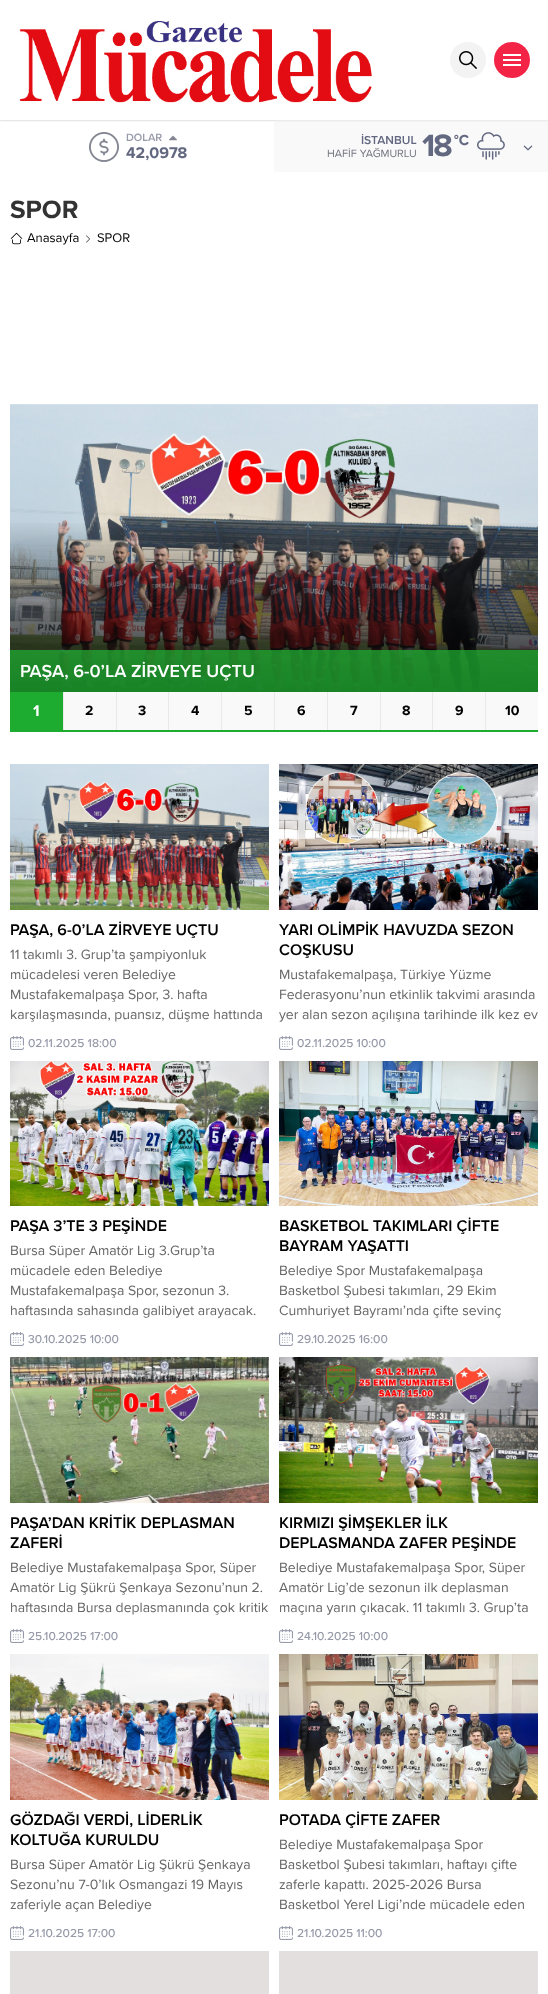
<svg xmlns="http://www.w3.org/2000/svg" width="548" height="1994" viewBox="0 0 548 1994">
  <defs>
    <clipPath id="clip1"><rect x="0" y="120" width="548" height="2"/></clipPath>
    <filter id="blur1" x="-50%" y="-200%" width="200%" height="500%"><feGaussianBlur stdDeviation="1.5"/></filter>
    <linearGradient id="g1" gradientUnits="userSpaceOnUse" x1="274" y1="519" x2="274" y2="692"><stop offset="0" stop-color="#000000" stop-opacity="0"/><stop offset="1" stop-color="#000000" stop-opacity="0.9"/></linearGradient>
  </defs>
  <rect width="100%" height="100%" fill="#ffffff"/>
  <rect x="0" y="120" width="274" height="1" fill="#f3f3f3"/>
  <rect x="274" y="120" width="274" height="52" fill="#f9f9f9"/>
  <g clip-path="url(#clip1)">
    <rect x="0" y="0" width="548" height="120" fill="#000000" fill-opacity="0.15" filter="url(#blur1)"/>
  </g>
  <image x="19" y="21" width="353" height="82" href="img1.png"/>
  <circle cx="468" cy="60" r="18" fill="#f3f3f3"/>
  <image x="459" y="51" width="18" height="18" href="img2.png"/>
  <circle cx="512" cy="60" r="18" fill="#f42447"/>
  <image x="503" y="54" width="18" height="12" href="img3.png"/>
  <image x="89" y="132" width="30" height="30" href="img4.png"/>
  <text x="126" y="141" font-family="Proxima Nova" font-size="11" font-weight="600" fill="#969aa9">DOLAR</text>
  <image x="169" y="135" width="8" height="6" href="img5.png"/>
  <text x="126" y="158" font-family="Proxima Nova" font-size="16" font-weight="bold" fill="#636881">42,0978</text>
  <text x="361" y="144" font-family="Proxima Nova" font-size="12" font-weight="600" fill="#636881">İSTANBUL</text>
  <text x="327" y="157" font-family="Proxima Nova" font-size="11" fill="#737580">HAFİF YAĞMURLU</text>
  <text x="422" y="156" font-family="Proxima Nova" font-size="32" font-weight="bold" letter-spacing="-2" fill="#636881">18</text>
  <text x="454" y="145" font-family="Proxima Nova" font-size="15" font-weight="bold" fill="#636881">°C</text>
  <image x="477" y="132" width="28" height="28" href="img6.png"/>
  <image x="523" y="145" width="10" height="6" href="img7.png"/>
  <text x="10" y="218" font-family="Proxima Nova" font-size="26" font-weight="bold" fill="#333333">SPOR</text>
  <image x="10" y="232" width="13" height="13" href="img8.png"/>
  <text x="27" y="242" font-family="Proxima Nova" font-size="13" fill="#000000">Anasayfa</text>
  <image x="86" y="235" width="4" height="8" href="img9.png"/>
  <text x="97" y="242" font-family="Proxima Nova" font-size="13" fill="#000000">SPOR</text>
  <rect x="10" y="730" width="528" height="2" fill="#1dab30"/>
  <image x="10" y="404" width="528" height="288" href="img10.png"/>
  <rect x="10" y="523" width="528" height="169" fill="url(#g1)"/>
  <rect x="10" y="650" width="528" height="42" fill="#1dab30" fill-opacity="0.75"/>
  <text x="20" y="677" font-family="Proxima Nova" font-size="18" font-weight="600" fill="#ffffff">PAŞA, 6-0’LA ZİRVEYE UÇTU</text>
  <rect x="10" y="692" width="53" height="38" fill="#1dab30"/>
  <text x="33" y="716" font-family="Proxima Nova" font-size="16" font-weight="bold" fill="#ffffff">1</text>
  <rect x="64" y="692" width="52" height="38" fill="#f9f9f9"/>
  <rect x="63" y="692" width="1" height="38" fill="#e9e9e9"/>
  <text x="85" y="715" font-family="Proxima Nova" font-size="14" font-weight="bold" fill="#000000">2</text>
  <rect x="117" y="692" width="51" height="38" fill="#f9f9f9"/>
  <rect x="116" y="692" width="1" height="38" fill="#e9e9e9"/>
  <text x="138" y="715" font-family="Proxima Nova" font-size="14" font-weight="bold" fill="#000000">3</text>
  <rect x="169" y="692" width="52" height="38" fill="#f9f9f9"/>
  <rect x="168" y="692" width="1" height="38" fill="#e9e9e9"/>
  <text x="191" y="715" font-family="Proxima Nova" font-size="14" font-weight="bold" fill="#000000">4</text>
  <rect x="222" y="692" width="52" height="38" fill="#f9f9f9"/>
  <rect x="221" y="692" width="1" height="38" fill="#e9e9e9"/>
  <text x="244" y="715" font-family="Proxima Nova" font-size="14" font-weight="bold" fill="#000000">5</text>
  <rect x="275" y="692" width="52" height="38" fill="#f9f9f9"/>
  <rect x="274" y="692" width="1" height="38" fill="#e9e9e9"/>
  <text x="297" y="715" font-family="Proxima Nova" font-size="14" font-weight="bold" fill="#000000">6</text>
  <rect x="328" y="692" width="52" height="38" fill="#f9f9f9"/>
  <rect x="327" y="692" width="1" height="38" fill="#e9e9e9"/>
  <text x="350" y="715" font-family="Proxima Nova" font-size="14" font-weight="bold" fill="#000000">7</text>
  <rect x="381" y="692" width="51" height="38" fill="#f9f9f9"/>
  <rect x="380" y="692" width="1" height="38" fill="#e9e9e9"/>
  <text x="402" y="715" font-family="Proxima Nova" font-size="14" font-weight="bold" fill="#000000">8</text>
  <rect x="433" y="692" width="52" height="38" fill="#f9f9f9"/>
  <rect x="432" y="692" width="1" height="38" fill="#e9e9e9"/>
  <text x="455" y="715" font-family="Proxima Nova" font-size="14" font-weight="bold" fill="#000000">9</text>
  <rect x="486" y="692" width="52" height="38" fill="#f9f9f9"/>
  <rect x="485" y="692" width="1" height="38" fill="#e9e9e9"/>
  <text x="505" y="715" font-family="Proxima Nova" font-size="14" font-weight="bold" fill="#000000">10</text>
  <image x="10" y="764" width="259" height="146" href="img11.png"/>
  <text x="10" y="935" font-family="Proxima Nova" font-size="16" font-weight="600" fill="#000000">PAŞA, 6-0’LA ZİRVEYE UÇTU</text>
  <text x="10" y="959" font-family="Proxima Nova" font-size="14" fill="#666666">11 takımlı 3. Grup’ta şampiyonluk</text>
  <text x="10" y="979" font-family="Proxima Nova" font-size="14" fill="#666666">mücadelesi veren Belediye</text>
  <text x="10" y="999" font-family="Proxima Nova" font-size="14" fill="#666666">Mustafakemalpaşa Spor, 3. hafta</text>
  <text x="10" y="1019" font-family="Proxima Nova" font-size="14" fill="#666666">karşılaşmasında, puansız, düşme hattında</text>
  <image x="10" y="1036" width="14" height="14" href="img12.png"/>
  <text x="28" y="1047" font-family="Proxima Nova" font-size="12" font-weight="500" fill="#969aa9">02.11.2025 18:00</text>
  <image x="279" y="764" width="259" height="146" href="img13.png"/>
  <text x="279" y="935" font-family="Proxima Nova" font-size="16" font-weight="600" fill="#000000">YARI OLİMPİK HAVUZDA SEZON</text>
  <text x="279" y="955" font-family="Proxima Nova" font-size="16" font-weight="600" fill="#000000">COŞKUSU</text>
  <text x="279" y="979" font-family="Proxima Nova" font-size="14" fill="#666666">Mustafakemalpaşa, Türkiye Yüzme</text>
  <text x="279" y="999" font-family="Proxima Nova" font-size="14" fill="#666666">Federasyonu’nun etkinlik takvimi arasında</text>
  <text x="279" y="1019" font-family="Proxima Nova" font-size="14" fill="#666666">yer alan sezon açılışına tarihinde ilk kez ev</text>
  <image x="279" y="1036" width="14" height="14" href="img12.png"/>
  <text x="297" y="1047" font-family="Proxima Nova" font-size="12" font-weight="500" fill="#969aa9">02.11.2025 10:00</text>
  <image x="10" y="1061" width="259" height="145" href="img14.png"/>
  <text x="10" y="1231" font-family="Proxima Nova" font-size="16" font-weight="600" fill="#000000">PAŞA 3’TE 3 PEŞİNDE</text>
  <text x="10" y="1255" font-family="Proxima Nova" font-size="14" fill="#666666">Bursa Süper Amatör Lig 3.Grup’ta</text>
  <text x="10" y="1275" font-family="Proxima Nova" font-size="14" fill="#666666">mücadele eden Belediye</text>
  <text x="10" y="1295" font-family="Proxima Nova" font-size="14" fill="#666666">Mustafakemalpaşa Spor, sezonun 3.</text>
  <text x="10" y="1315" font-family="Proxima Nova" font-size="14" fill="#666666">haftasında sahasında galibiyet arayacak.</text>
  <image x="10" y="1332" width="14" height="14" href="img12.png"/>
  <text x="28" y="1343" font-family="Proxima Nova" font-size="12" font-weight="500" fill="#969aa9">30.10.2025 10:00</text>
  <image x="279" y="1061" width="259" height="145" href="img15.png"/>
  <text x="279" y="1231" font-family="Proxima Nova" font-size="16" font-weight="600" fill="#000000">BASKETBOL TAKIMLARI ÇİFTE</text>
  <text x="279" y="1251" font-family="Proxima Nova" font-size="16" font-weight="600" fill="#000000">BAYRAM YAŞATTI</text>
  <text x="279" y="1275" font-family="Proxima Nova" font-size="14" fill="#666666">Belediye Spor Mustafakemalpaşa</text>
  <text x="279" y="1295" font-family="Proxima Nova" font-size="14" fill="#666666">Basketbol Şubesi takımları, 29 Ekim</text>
  <text x="279" y="1315" font-family="Proxima Nova" font-size="14" fill="#666666">Cumhuriyet Bayramı’nda çifte sevinç</text>
  <image x="279" y="1332" width="14" height="14" href="img12.png"/>
  <text x="297" y="1343" font-family="Proxima Nova" font-size="12" font-weight="500" fill="#969aa9">29.10.2025 16:00</text>
  <image x="10" y="1357" width="259" height="146" href="img16.png"/>
  <text x="10" y="1528" font-family="Proxima Nova" font-size="16" font-weight="600" fill="#000000">PAŞA’DAN KRİTİK DEPLASMAN</text>
  <text x="10" y="1548" font-family="Proxima Nova" font-size="16" font-weight="600" fill="#000000">ZAFERİ</text>
  <text x="10" y="1572" font-family="Proxima Nova" font-size="14" fill="#666666">Belediye Mustafakemalpaşa Spor, Süper</text>
  <text x="10" y="1592" font-family="Proxima Nova" font-size="14" fill="#666666">Amatör Lig Şükrü Şenkaya Sezonu’nun 2.</text>
  <text x="10" y="1612" font-family="Proxima Nova" font-size="14" fill="#666666">haftasında Bursa deplasmanında çok kritik</text>
  <image x="10" y="1629" width="14" height="14" href="img12.png"/>
  <text x="28" y="1640" font-family="Proxima Nova" font-size="12" font-weight="500" fill="#969aa9">25.10.2025 17:00</text>
  <image x="279" y="1357" width="259" height="146" href="img17.png"/>
  <text x="279" y="1528" font-family="Proxima Nova" font-size="16" font-weight="600" fill="#000000">KIRMIZI ŞİMŞEKLER İLK</text>
  <text x="279" y="1548" font-family="Proxima Nova" font-size="16" font-weight="600" fill="#000000">DEPLASMANDA ZAFER PEŞİNDE</text>
  <text x="279" y="1572" font-family="Proxima Nova" font-size="14" fill="#666666">Belediye Mustafakemalpaşa Spor, Süper</text>
  <text x="279" y="1592" font-family="Proxima Nova" font-size="14" fill="#666666">Amatör Lig’de sezonun ilk deplasman</text>
  <text x="279" y="1612" font-family="Proxima Nova" font-size="14" fill="#666666">maçına yarın çıkacak. 11 takımlı 3. Grup’ta</text>
  <image x="279" y="1629" width="14" height="14" href="img12.png"/>
  <text x="297" y="1640" font-family="Proxima Nova" font-size="12" font-weight="500" fill="#969aa9">24.10.2025 10:00</text>
  <image x="10" y="1654" width="259" height="146" href="img18.png"/>
  <text x="10" y="1825" font-family="Proxima Nova" font-size="16" font-weight="600" fill="#000000">GÖZDAĞI VERDİ, LİDERLİK</text>
  <text x="10" y="1845" font-family="Proxima Nova" font-size="16" font-weight="600" fill="#000000">KOLTUĞA KURULDU</text>
  <text x="10" y="1869" font-family="Proxima Nova" font-size="14" fill="#666666">Bursa Süper Amatör Lig Şükrü Şenkaya</text>
  <text x="10" y="1889" font-family="Proxima Nova" font-size="14" fill="#666666">Sezonu’nu 7-0’lık Osmangazi 19 Mayıs</text>
  <text x="10" y="1909" font-family="Proxima Nova" font-size="14" fill="#666666">zaferiyle açan Belediye</text>
  <image x="10" y="1926" width="14" height="14" href="img12.png"/>
  <text x="28" y="1937" font-family="Proxima Nova" font-size="12" font-weight="500" fill="#969aa9">21.10.2025 17:00</text>
  <image x="279" y="1654" width="259" height="146" href="img19.png"/>
  <text x="279" y="1825" font-family="Proxima Nova" font-size="16" font-weight="600" fill="#000000">POTADA ÇİFTE ZAFER</text>
  <text x="279" y="1849" font-family="Proxima Nova" font-size="14" fill="#666666">Belediye Mustafakemalpaşa Spor</text>
  <text x="279" y="1869" font-family="Proxima Nova" font-size="14" fill="#666666">Basketbol Şubesi takımları, haftayı çifte</text>
  <text x="279" y="1889" font-family="Proxima Nova" font-size="14" fill="#666666">zaferle kapattı. 2025-2026 Bursa</text>
  <text x="279" y="1909" font-family="Proxima Nova" font-size="14" fill="#666666">Basketbol Yerel Ligi’nde mücadele eden</text>
  <image x="279" y="1926" width="14" height="14" href="img12.png"/>
  <text x="297" y="1937" font-family="Proxima Nova" font-size="12" font-weight="500" fill="#969aa9">21.10.2025 11:00</text>
  <rect x="10" y="1951" width="259" height="43" fill="#e4dfdf"/>
  <rect x="279" y="1951" width="259" height="43" fill="#e4dfdf"/>
</svg>
